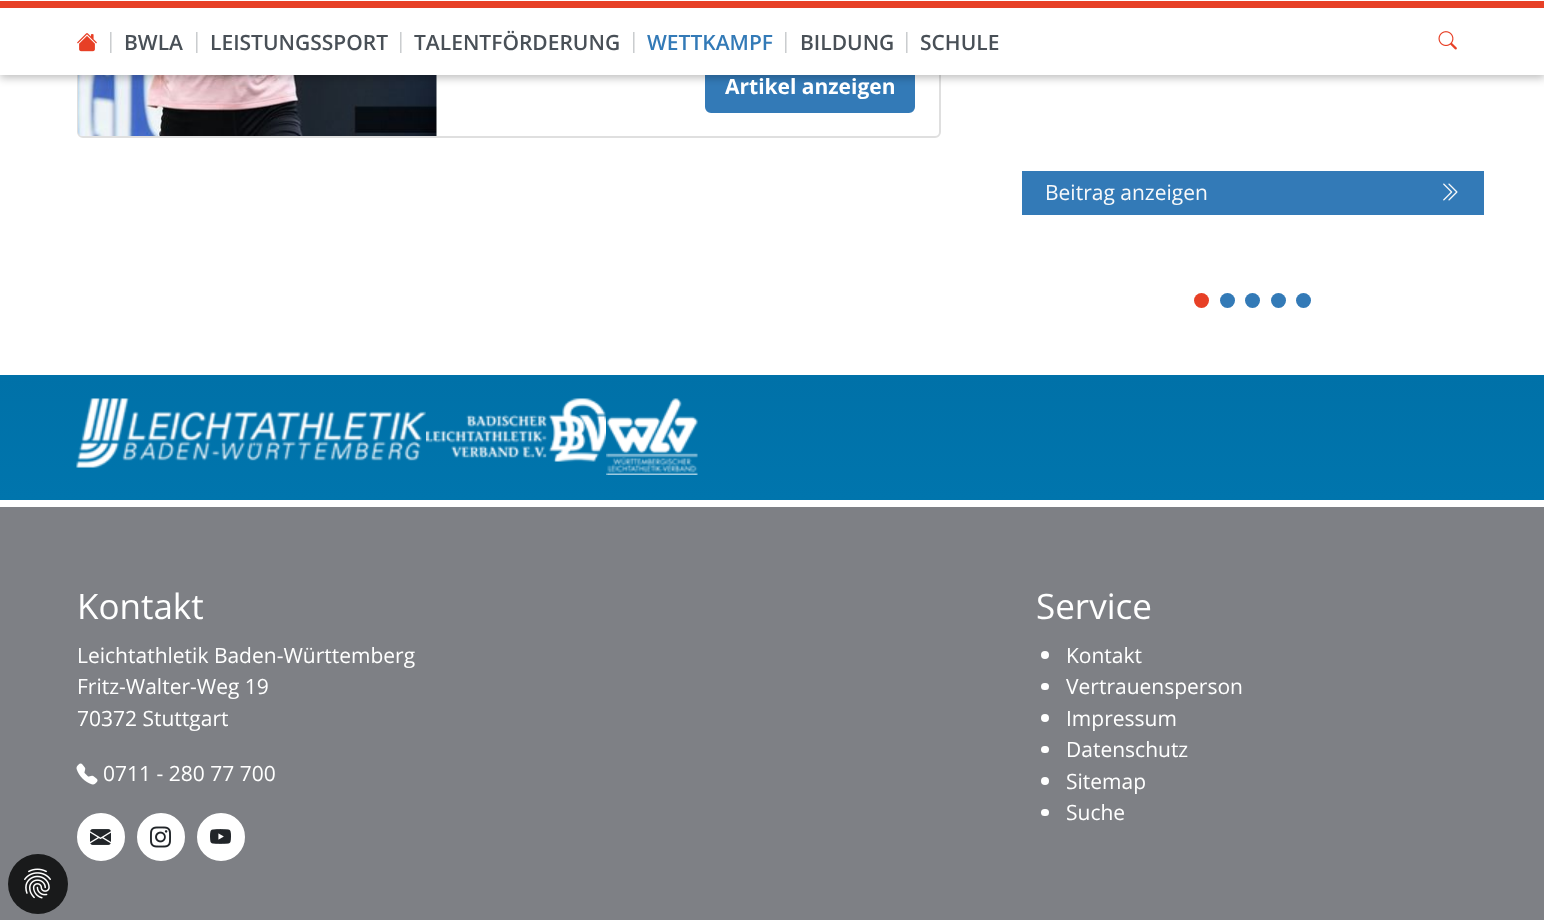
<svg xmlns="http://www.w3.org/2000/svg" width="1544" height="920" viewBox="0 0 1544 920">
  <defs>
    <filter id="blur1" x="-50%" y="-200%" width="200%" height="500%"><feGaussianBlur stdDeviation="4"/></filter>
    <linearGradient id="g1" gradientUnits="userSpaceOnUse" x1="773" y1="375" x2="773" y2="500"><stop offset="0" stop-color="#0071a8"/><stop offset="1" stop-color="#0075ad"/></linearGradient>
  </defs>
  <rect width="100%" height="100%" fill="#ffffff"/>
  <rect x="78" y="-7" width="862" height="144" rx="5" fill="none" stroke="#dfdfdf" stroke-width="2"/>
  <image x="78" y="75" width="359" height="61" href="img3.png"/>
  <rect x="706" y="61" width="208" height="51" rx="5" fill="#337ab7" stroke="#337ab7" stroke-width="2"/>
  <rect x="0" y="3" width="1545" height="75" fill="#000000" fill-opacity="0.25" filter="url(#blur1)"/>
  <rect x="0" y="8" width="1544" height="67" fill="#ffffff"/>
  <rect x="0" y="1" width="1544" height="7" fill="#e74026"/>
  <rect x="0" y="0" width="1544" height="1" fill="#ffffff"/>
  <image x="77" y="33" width="20" height="19" href="img1.png"/>
  <text x="105" y="48" font-family="Open Sans" font-size="21" fill="#c8cbcd">|</text>
  <text x="124" y="50" font-family="Open Sans" font-size="21" font-weight="600" fill="#495057">BWLA</text>
  <text x="191" y="48" font-family="Open Sans" font-size="21" fill="#c8cbcd">|</text>
  <text x="210" y="50" font-family="Open Sans" font-size="21" font-weight="600" fill="#495057">LEISTUNGSSPORT</text>
  <text x="395" y="48" font-family="Open Sans" font-size="21" fill="#c8cbcd">|</text>
  <text x="414" y="50" font-family="Open Sans" font-size="21" font-weight="600" fill="#495057">TALENTFÖRDERUNG</text>
  <text x="628" y="48" font-family="Open Sans" font-size="21" fill="#c8cbcd">|</text>
  <text x="647" y="50" font-family="Open Sans" font-size="21" font-weight="600" fill="#337ab7">WETTKAMPF</text>
  <text x="780" y="48" font-family="Open Sans" font-size="21" fill="#c8cbcd">|</text>
  <text x="800" y="50" font-family="Open Sans" font-size="21" font-weight="600" fill="#495057">BILDUNG</text>
  <text x="901" y="48" font-family="Open Sans" font-size="21" fill="#c8cbcd">|</text>
  <text x="920" y="50" font-family="Open Sans" font-size="21" font-weight="600" fill="#495057">SCHULE</text>
  <image x="1438" y="31" width="19" height="19" href="img2.png"/>
  <text x="725" y="94" font-family="Open Sans" font-size="21" font-weight="bold" fill="#ffffff">Artikel anzeigen</text>
  <rect x="1022" y="171" width="462" height="44" fill="#337ab7"/>
  <text x="1045" y="200" font-family="Open Sans" font-size="21" fill="#f8f9fa">Beitrag anzeigen</text>
  <image x="1443" y="183" width="15" height="18" href="img4.png"/>
  <circle cx="1201.5" cy="300.5" r="7.5" fill="#e74026"/>
  <circle cx="1227.5" cy="300.5" r="7.5" fill="#337ab7"/>
  <circle cx="1252.5" cy="300.5" r="7.5" fill="#337ab7"/>
  <circle cx="1278.5" cy="300.5" r="7.5" fill="#337ab7"/>
  <circle cx="1303.5" cy="300.5" r="7.5" fill="#337ab7"/>
  <rect x="0" y="375" width="1544" height="125" fill="url(#g1)"/>
  <image x="76" y="398" width="350" height="70" href="img5.png"/>
  <image x="426" y="398" width="180" height="64" href="img6.png"/>
  <image x="606" y="398" width="92" height="77" href="img7.png"/>
  <rect x="0" y="507" width="1544" height="413" fill="#7e8085"/>
  <text x="77" y="619" font-family="Open Sans" font-size="35" fill="#ffffff">Kontakt</text>
  <text x="77" y="663" font-family="Open Sans" font-size="21" fill="#ffffff">Leichtathletik Baden-Württemberg</text>
  <text x="77" y="694" font-family="Open Sans" font-size="21" fill="#ffffff">Fritz-Walter-Weg 19</text>
  <text x="77" y="726" font-family="Open Sans" font-size="21" fill="#ffffff">70372 Stuttgart</text>
  <image x="76" y="763" width="22" height="22" href="img8.png"/>
  <text x="103" y="781" font-family="Open Sans" font-size="21" fill="#ffffff">0711 - 280 77 700</text>
  <circle cx="101" cy="837" r="23" fill="#ffffff" stroke="#ffffff" stroke-width="2"/>
  <image x="90" y="829" width="21" height="16" href="img9.png"/>
  <circle cx="161" cy="837" r="23" fill="#ffffff" stroke="#ffffff" stroke-width="2"/>
  <image x="150" y="826" width="21" height="22" href="img10.png"/>
  <circle cx="221" cy="837" r="23" fill="#ffffff" stroke="#ffffff" stroke-width="2"/>
  <image x="210" y="829" width="21" height="15" href="img11.png"/>
  <text x="1036" y="619" font-family="Open Sans" font-size="35" fill="#ffffff">Service</text>
  <circle cx="1045" cy="655" r="4" fill="#ffffff"/>
  <text x="1066" y="663" font-family="Open Sans" font-size="21" fill="#ffffff">Kontakt</text>
  <rect x="1041" y="683" width="8" height="7" rx="3.5" fill="#ffffff"/>
  <text x="1066" y="694" font-family="Open Sans" font-size="21" fill="#ffffff">Vertrauensperson</text>
  <circle cx="1045" cy="718" r="4" fill="#ffffff"/>
  <text x="1066" y="726" font-family="Open Sans" font-size="21" fill="#ffffff">Impressum</text>
  <rect x="1041" y="746" width="8" height="7" rx="3.5" fill="#ffffff"/>
  <text x="1066" y="757" font-family="Open Sans" font-size="21" fill="#ffffff">Datenschutz</text>
  <circle cx="1045" cy="781" r="4" fill="#ffffff"/>
  <text x="1066" y="789" font-family="Open Sans" font-size="21" fill="#ffffff">Sitemap</text>
  <rect x="1041" y="809" width="8" height="7" rx="3.5" fill="#ffffff"/>
  <text x="1066" y="820" font-family="Open Sans" font-size="21" fill="#ffffff">Suche</text>
  <circle cx="38" cy="884" r="30" fill="#191a1b"/>
  <image x="24" y="868" width="27" height="31" href="img12.png"/>
</svg>
